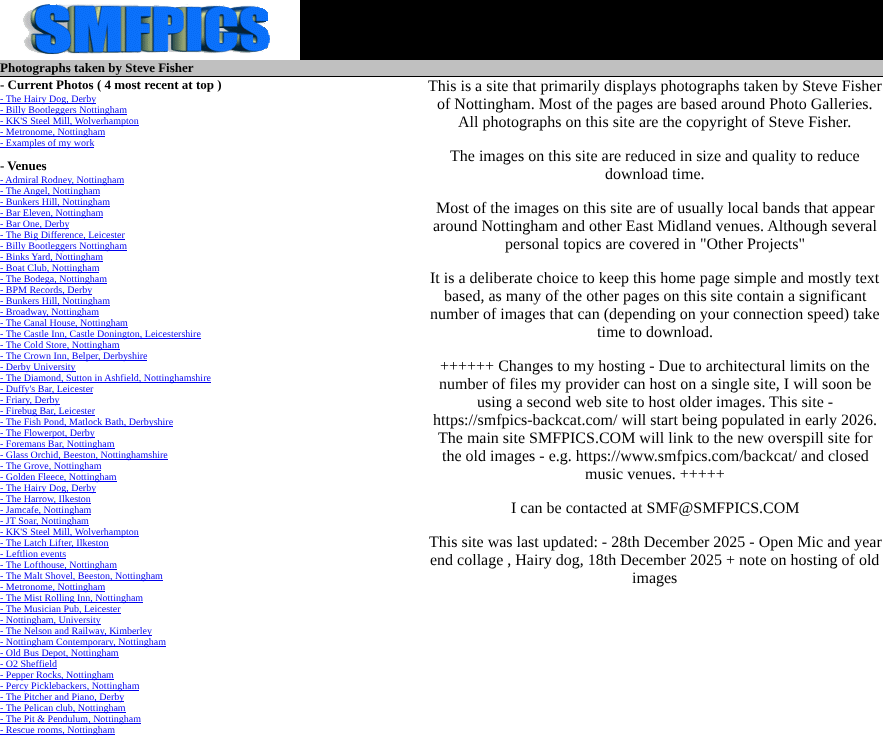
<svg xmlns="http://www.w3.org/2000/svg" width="883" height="735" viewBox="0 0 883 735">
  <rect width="100%" height="100%" fill="#ffffff"/>
  <rect x="300" y="0" width="583" height="60" fill="#000000"/>
  <image x="0" y="0" width="300" height="60" href="img1.png"/>
  <rect x="0" y="60" width="883" height="16" fill="#c0c0c0"/>
  <text x="0" y="72" font-family="Liberation Serif" font-size="13" font-weight="bold" fill="#000000">Photographs taken by Steve Fisher</text>
  <rect x="0" y="76" width="883" height="1" fill="#000000"/>
  <text x="0" y="89" font-family="Liberation Serif" font-size="13" font-weight="bold" fill="#000000">- Current Photos ( 4 most recent at top )</text>
  <rect x="0" y="103" width="96" height="1" fill="#0000ee"/>
  <text x="0" y="102" font-family="Liberation Serif" font-size="10" fill="#0000ee">- The Hairy Dog, Derby</text>
  <rect x="0" y="114" width="127" height="1" fill="#0000ee"/>
  <text x="0" y="113" font-family="Liberation Serif" font-size="10" fill="#0000ee">- Billy Bootleggers Nottingham</text>
  <rect x="0" y="125" width="139" height="1" fill="#0000ee"/>
  <text x="0" y="124" font-family="Liberation Serif" font-size="10" fill="#0000ee">- KK'S Steel Mill, Wolverhampton</text>
  <rect x="0" y="136" width="105" height="1" fill="#0000ee"/>
  <text x="0" y="135" font-family="Liberation Serif" font-size="10" fill="#0000ee">- Metronome, Nottingham</text>
  <rect x="0" y="147" width="94" height="1" fill="#0000ee"/>
  <text x="0" y="146" font-family="Liberation Serif" font-size="10" fill="#0000ee">- Examples of my work</text>
  <text x="0" y="170" font-family="Liberation Serif" font-size="13" font-weight="bold" fill="#000000">- Venues</text>
  <rect x="0" y="184" width="124" height="1" fill="#0000ee"/>
  <text x="0" y="183" font-family="Liberation Serif" font-size="10" fill="#0000ee">- Admiral Rodney, Nottingham</text>
  <rect x="0" y="195" width="100" height="1" fill="#0000ee"/>
  <text x="0" y="194" font-family="Liberation Serif" font-size="10" fill="#0000ee">- The Angel, Nottingham</text>
  <rect x="0" y="206" width="110" height="1" fill="#0000ee"/>
  <text x="0" y="205" font-family="Liberation Serif" font-size="10" fill="#0000ee">- Bunkers Hill, Nottingham</text>
  <rect x="0" y="217" width="103" height="1" fill="#0000ee"/>
  <text x="0" y="216" font-family="Liberation Serif" font-size="10" fill="#0000ee">- Bar Eleven, Nottingham</text>
  <rect x="0" y="228" width="69" height="1" fill="#0000ee"/>
  <text x="0" y="227" font-family="Liberation Serif" font-size="10" fill="#0000ee">- Bar One, Derby</text>
  <rect x="0" y="239" width="125" height="1" fill="#0000ee"/>
  <text x="0" y="238" font-family="Liberation Serif" font-size="10" fill="#0000ee">- The Big Difference, Leicester</text>
  <rect x="0" y="250" width="127" height="1" fill="#0000ee"/>
  <text x="0" y="249" font-family="Liberation Serif" font-size="10" fill="#0000ee">- Billy Bootleggers Nottingham</text>
  <rect x="0" y="261" width="103" height="1" fill="#0000ee"/>
  <text x="0" y="260" font-family="Liberation Serif" font-size="10" fill="#0000ee">- Binks Yard, Nottingham</text>
  <rect x="0" y="272" width="99" height="1" fill="#0000ee"/>
  <text x="0" y="271" font-family="Liberation Serif" font-size="10" fill="#0000ee">- Boat Club, Nottingham</text>
  <rect x="0" y="283" width="107" height="1" fill="#0000ee"/>
  <text x="0" y="282" font-family="Liberation Serif" font-size="10" fill="#0000ee">- The Bodega, Nottingham</text>
  <rect x="0" y="294" width="92" height="1" fill="#0000ee"/>
  <text x="0" y="293" font-family="Liberation Serif" font-size="10" fill="#0000ee">- BPM Records, Derby</text>
  <rect x="0" y="305" width="110" height="1" fill="#0000ee"/>
  <text x="0" y="304" font-family="Liberation Serif" font-size="10" fill="#0000ee">- Bunkers Hill, Nottingham</text>
  <rect x="0" y="316" width="99" height="1" fill="#0000ee"/>
  <text x="0" y="315" font-family="Liberation Serif" font-size="10" fill="#0000ee">- Broadway, Nottingham</text>
  <rect x="0" y="327" width="128" height="1" fill="#0000ee"/>
  <text x="0" y="326" font-family="Liberation Serif" font-size="10" fill="#0000ee">- The Canal House, Nottingham</text>
  <rect x="0" y="338" width="201" height="1" fill="#0000ee"/>
  <text x="0" y="337" font-family="Liberation Serif" font-size="10" fill="#0000ee">- The Castle Inn, Castle Donington, Leicestershire</text>
  <rect x="0" y="349" width="120" height="1" fill="#0000ee"/>
  <text x="0" y="348" font-family="Liberation Serif" font-size="10" fill="#0000ee">- The Cold Store, Nottingham</text>
  <rect x="0" y="360" width="147" height="1" fill="#0000ee"/>
  <text x="0" y="359" font-family="Liberation Serif" font-size="10" fill="#0000ee">- The Crown Inn, Belper, Derbyshire</text>
  <rect x="0" y="371" width="76" height="1" fill="#0000ee"/>
  <text x="0" y="370" font-family="Liberation Serif" font-size="10" fill="#0000ee">- Derby University</text>
  <rect x="0" y="382" width="211" height="1" fill="#0000ee"/>
  <text x="0" y="381" font-family="Liberation Serif" font-size="10" fill="#0000ee">- The Diamond, Sutton in Ashfield, Nottinghamshire</text>
  <rect x="0" y="393" width="93" height="1" fill="#0000ee"/>
  <text x="0" y="392" font-family="Liberation Serif" font-size="10" fill="#0000ee">- Duffy's Bar, Leicester</text>
  <rect x="0" y="404" width="60" height="1" fill="#0000ee"/>
  <text x="0" y="403" font-family="Liberation Serif" font-size="10" fill="#0000ee">- Friary, Derby</text>
  <rect x="0" y="415" width="95" height="1" fill="#0000ee"/>
  <text x="0" y="414" font-family="Liberation Serif" font-size="10" fill="#0000ee">- Firebug Bar, Leicester</text>
  <rect x="0" y="426" width="173" height="1" fill="#0000ee"/>
  <text x="0" y="425" font-family="Liberation Serif" font-size="10" fill="#0000ee">- The Fish Pond, Matlock Bath, Derbyshire</text>
  <rect x="0" y="437" width="95" height="1" fill="#0000ee"/>
  <text x="0" y="436" font-family="Liberation Serif" font-size="10" fill="#0000ee">- The Flowerpot, Derby</text>
  <rect x="0" y="448" width="115" height="1" fill="#0000ee"/>
  <text x="0" y="447" font-family="Liberation Serif" font-size="10" fill="#0000ee">- Foremans Bar, Nottingham</text>
  <rect x="0" y="459" width="168" height="1" fill="#0000ee"/>
  <text x="0" y="458" font-family="Liberation Serif" font-size="10" fill="#0000ee">- Glass Orchid, Beeston, Nottinghamshire</text>
  <rect x="0" y="470" width="101" height="1" fill="#0000ee"/>
  <text x="0" y="469" font-family="Liberation Serif" font-size="10" fill="#0000ee">- The Grove, Nottingham</text>
  <rect x="0" y="481" width="117" height="1" fill="#0000ee"/>
  <text x="0" y="480" font-family="Liberation Serif" font-size="10" fill="#0000ee">- Golden Fleece, Nottingham</text>
  <rect x="0" y="492" width="96" height="1" fill="#0000ee"/>
  <text x="0" y="491" font-family="Liberation Serif" font-size="10" fill="#0000ee">- The Hairy Dog, Derby</text>
  <rect x="0" y="503" width="91" height="1" fill="#0000ee"/>
  <text x="0" y="502" font-family="Liberation Serif" font-size="10" fill="#0000ee">- The Harrow, Ilkeston</text>
  <rect x="0" y="514" width="91" height="1" fill="#0000ee"/>
  <text x="0" y="513" font-family="Liberation Serif" font-size="10" fill="#0000ee">- Jamcafe, Nottingham</text>
  <rect x="0" y="525" width="89" height="1" fill="#0000ee"/>
  <text x="0" y="524" font-family="Liberation Serif" font-size="10" fill="#0000ee">- JT Soar, Nottingham</text>
  <rect x="0" y="536" width="139" height="1" fill="#0000ee"/>
  <text x="0" y="535" font-family="Liberation Serif" font-size="10" fill="#0000ee">- KK'S Steel Mill, Wolverhampton</text>
  <rect x="0" y="547" width="109" height="1" fill="#0000ee"/>
  <text x="0" y="546" font-family="Liberation Serif" font-size="10" fill="#0000ee">- The Latch Lifter, Ilkeston</text>
  <text x="0" y="557" font-family="Liberation Serif" font-size="10" fill="#0000ee">- Leftlion events</text>
  <rect x="0" y="558" width="66" height="1" fill="#0000ee"/>
  <rect x="0" y="569" width="117" height="1" fill="#0000ee"/>
  <text x="0" y="568" font-family="Liberation Serif" font-size="10" fill="#0000ee">- The Lofthouse, Nottingham</text>
  <rect x="0" y="580" width="163" height="1" fill="#0000ee"/>
  <text x="0" y="579" font-family="Liberation Serif" font-size="10" fill="#0000ee">- The Malt Shovel, Beeston, Nottingham</text>
  <rect x="0" y="591" width="105" height="1" fill="#0000ee"/>
  <text x="0" y="590" font-family="Liberation Serif" font-size="10" fill="#0000ee">- Metronome, Nottingham</text>
  <rect x="0" y="602" width="143" height="1" fill="#0000ee"/>
  <text x="0" y="601" font-family="Liberation Serif" font-size="10" fill="#0000ee">- The Mist Rolling Inn, Nottingham</text>
  <rect x="0" y="613" width="121" height="1" fill="#0000ee"/>
  <text x="0" y="612" font-family="Liberation Serif" font-size="10" fill="#0000ee">- The Musician Pub, Leicester</text>
  <rect x="0" y="624" width="101" height="1" fill="#0000ee"/>
  <text x="0" y="623" font-family="Liberation Serif" font-size="10" fill="#0000ee">- Nottingham, University</text>
  <rect x="0" y="635" width="152" height="1" fill="#0000ee"/>
  <text x="0" y="634" font-family="Liberation Serif" font-size="10" fill="#0000ee">- The Nelson and Railway, Kimberley</text>
  <rect x="0" y="646" width="166" height="1" fill="#0000ee"/>
  <text x="0" y="645" font-family="Liberation Serif" font-size="10" fill="#0000ee">- Nottingham Contemporary, Nottingham</text>
  <rect x="0" y="657" width="119" height="1" fill="#0000ee"/>
  <text x="0" y="656" font-family="Liberation Serif" font-size="10" fill="#0000ee">- Old Bus Depot, Nottingham</text>
  <text x="0" y="667" font-family="Liberation Serif" font-size="10" fill="#0000ee">- O2 Sheffield</text>
  <rect x="0" y="668" width="57" height="1" fill="#0000ee"/>
  <rect x="0" y="679" width="114" height="1" fill="#0000ee"/>
  <text x="0" y="678" font-family="Liberation Serif" font-size="10" fill="#0000ee">- Pepper Rocks, Nottingham</text>
  <rect x="0" y="690" width="139" height="1" fill="#0000ee"/>
  <text x="0" y="689" font-family="Liberation Serif" font-size="10" fill="#0000ee">- Percy Picklebackers, Nottingham</text>
  <rect x="0" y="701" width="124" height="1" fill="#0000ee"/>
  <text x="0" y="700" font-family="Liberation Serif" font-size="10" fill="#0000ee">- The Pitcher and Piano, Derby</text>
  <rect x="0" y="712" width="126" height="1" fill="#0000ee"/>
  <text x="0" y="711" font-family="Liberation Serif" font-size="10" fill="#0000ee">- The Pelican club, Nottingham</text>
  <rect x="0" y="723" width="141" height="1" fill="#0000ee"/>
  <text x="0" y="722" font-family="Liberation Serif" font-size="10" fill="#0000ee">- The Pit &amp; Pendulum, Nottingham</text>
  <rect x="0" y="734" width="115" height="1" fill="#0000ee"/>
  <text x="0" y="733" font-family="Liberation Serif" font-size="10" fill="#0000ee">- Rescue rooms, Nottingham</text>
  <text x="428" y="91" font-family="Liberation Serif" font-size="16" fill="#000000">This is a site that primarily displays photographs taken by Steve Fisher</text>
  <text x="437" y="109" font-family="Liberation Serif" font-size="16" fill="#000000">of Nottingham. Most of the pages are based around Photo Galleries.</text>
  <text x="458" y="127" font-family="Liberation Serif" font-size="16" fill="#000000">All photographs on this site are the copyright of Steve Fisher.</text>
  <text x="450" y="161" font-family="Liberation Serif" font-size="16" fill="#000000">The images on this site are reduced in size and quality to reduce</text>
  <text x="605" y="179" font-family="Liberation Serif" font-size="16" fill="#000000">download time.</text>
  <text x="436" y="213" font-family="Liberation Serif" font-size="16" fill="#000000">Most of the images on this site are of usually local bands that appear</text>
  <text x="433" y="231" font-family="Liberation Serif" font-size="16" fill="#000000">around Nottingham and other East Midland venues. Although several</text>
  <text x="505" y="249" font-family="Liberation Serif" font-size="16" fill="#000000">personal topics are covered in "Other Projects"</text>
  <text x="430" y="283" font-family="Liberation Serif" font-size="16" fill="#000000">It is a deliberate choice to keep this home page simple and mostly text</text>
  <text x="444" y="301" font-family="Liberation Serif" font-size="16" fill="#000000">based, as many of the other pages on this site contain a significant</text>
  <text x="430" y="319" font-family="Liberation Serif" font-size="16" fill="#000000">number of images that can (depending on your connection speed) take</text>
  <text x="597" y="337" font-family="Liberation Serif" font-size="16" fill="#000000">time to download.</text>
  <text x="440" y="371" font-family="Liberation Serif" font-size="16" fill="#000000">++++++ Changes to my hosting - Due to architectural limits on the</text>
  <text x="439" y="389" font-family="Liberation Serif" font-size="16" fill="#000000">number of files my provider can host on a single site, I will soon be</text>
  <text x="477" y="407" font-family="Liberation Serif" font-size="16" fill="#000000">using a second web site to host older images. This site -</text>
  <text x="433" y="425" font-family="Liberation Serif" font-size="16" fill="#000000">https://smfpics-backcat.com/ will start being populated in early 2026.</text>
  <text x="438" y="443" font-family="Liberation Serif" font-size="16" fill="#000000">The main site SMFPICS.COM will link to the new overspill site for</text>
  <text x="442" y="461" font-family="Liberation Serif" font-size="16" fill="#000000">the old images - e.g. https://www.smfpics.com/backcat/ and closed</text>
  <text x="585" y="479" font-family="Liberation Serif" font-size="16" fill="#000000">music venues. +++++</text>
  <text x="511" y="513" font-family="Liberation Serif" font-size="16" fill="#000000">I can be contacted at SMF@SMFPICS.COM</text>
  <text x="429" y="547" font-family="Liberation Serif" font-size="16" fill="#000000">This site was last updated: - 28th December 2025 - Open Mic and year</text>
  <text x="430" y="565" font-family="Liberation Serif" font-size="16" fill="#000000">end collage , Hairy dog, 18th December 2025 + note on hosting of old</text>
  <text x="632" y="583" font-family="Liberation Serif" font-size="16" fill="#000000">images</text>
</svg>
